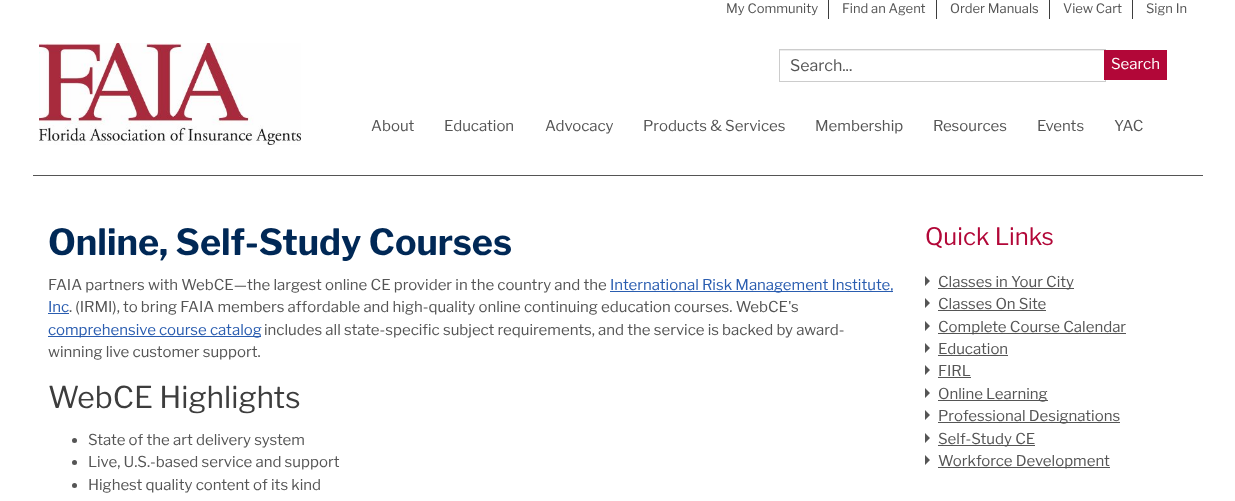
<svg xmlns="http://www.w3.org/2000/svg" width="1235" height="501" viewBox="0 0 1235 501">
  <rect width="100%" height="100%" fill="#ffffff"/>
  <rect x="33" y="175" width="1170" height="1" fill="#555555"/>
  <image x="39" y="43" width="262" height="102" href="img1.png"/>
  <rect x="828" y="0" width="1" height="19" fill="#3d3d3d"/>
  <text x="726" y="13" font-family="Libre Franklin" font-size="13" fill="#555555">My Community</text>
  <rect x="936" y="0" width="1" height="19" fill="#3d3d3d"/>
  <text x="842" y="13" font-family="Libre Franklin" font-size="13" fill="#555555">Find an Agent</text>
  <rect x="1049" y="0" width="1" height="19" fill="#3d3d3d"/>
  <text x="950" y="13" font-family="Libre Franklin" font-size="13" fill="#555555">Order Manuals</text>
  <rect x="1132" y="0" width="1" height="19" fill="#3d3d3d"/>
  <text x="1063" y="13" font-family="Libre Franklin" font-size="13" fill="#555555">View Cart</text>
  <text x="1146" y="13" font-family="Libre Franklin" font-size="13" fill="#555555">Sign In</text>
  <rect x="780" y="50" width="325" height="1" fill="#ececec"/>
  <rect x="779.5" y="49.5" width="326" height="32" fill="none" stroke="#cccccc"/>
  <text x="790" y="71" font-family="Libre Franklin" font-size="16" fill="#555555">Search...</text>
  <rect x="1104" y="50" width="63" height="30" fill="#b20738"/>
  <text x="1111" y="69" font-family="Libre Franklin" font-size="15" fill="#ffffff">Search</text>
  <text x="371" y="131" font-family="Libre Franklin" font-size="15" fill="#555555">About</text>
  <text x="444" y="131" font-family="Libre Franklin" font-size="15" fill="#555555">Education</text>
  <text x="545" y="131" font-family="Libre Franklin" font-size="15" fill="#555555">Advocacy</text>
  <text x="643" y="131" font-family="Libre Franklin" font-size="15" fill="#555555">Products &amp; Services</text>
  <text x="815" y="131" font-family="Libre Franklin" font-size="15" fill="#555555">Membership</text>
  <text x="933" y="131" font-family="Libre Franklin" font-size="15" fill="#555555">Resources</text>
  <text x="1037" y="131" font-family="Libre Franklin" font-size="15" fill="#555555">Events</text>
  <text x="1114" y="131" font-family="Libre Franklin" font-size="15" fill="#555555">YAC</text>
  <text x="48" y="255" font-family="Libre Franklin" font-size="36" font-weight="bold" fill="#002856">Online, Self-Study Courses</text>
  <text x="48" y="290" font-family="Libre Franklin" font-size="15" fill="#555555">FAIA partners with WebCE—the largest online CE provider in the country and the</text>
  <rect x="610" y="291" width="283" height="1" fill="#2a5db0"/>
  <text x="610" y="290" font-family="Libre Franklin" font-size="15" fill="#2a5db0">International Risk Management Institute,</text>
  <text x="48" y="312" font-family="Libre Franklin" font-size="15" fill="#2a5db0">Inc</text>
  <rect x="48" y="313" width="21" height="1" fill="#2a5db0"/>
  <text x="69" y="312" font-family="Libre Franklin" font-size="15" fill="#555555">. (IRMI), to bring FAIA members affordable and high-quality online continuing education courses. WebCE's</text>
  <rect x="48" y="336" width="213" height="1" fill="#2a5db0"/>
  <text x="48" y="335" font-family="Libre Franklin" font-size="15" fill="#2a5db0">comprehensive course catalog</text>
  <text x="264" y="335" font-family="Libre Franklin" font-size="15" fill="#555555">includes all state-specific subject requirements, and the service is backed by award-</text>
  <text x="48" y="357" font-family="Libre Franklin" font-size="15" fill="#555555">winning live customer support.</text>
  <text x="48" y="408" font-family="Libre Franklin" font-size="30" fill="#3d3d3d">WebCE Highlights</text>
  <circle cx="74.5" cy="440.5" r="2.5" fill="#555555"/>
  <text x="88" y="445" font-family="Libre Franklin" font-size="15" fill="#555555">State of the art delivery system</text>
  <circle cx="74.5" cy="462.5" r="2.5" fill="#555555"/>
  <text x="88" y="467" font-family="Libre Franklin" font-size="15" fill="#555555">Live, U.S.-based service and support</text>
  <circle cx="74.5" cy="485.5" r="2.5" fill="#555555"/>
  <text x="88" y="490" font-family="Libre Franklin" font-size="15" fill="#555555">Highest quality content of its kind</text>
  <text x="925" y="245" font-family="Libre Franklin" font-size="24" fill="#b20738">Quick Links</text>
  <path d="M925 286V276L930 281ZM925 308V298L930 303ZM925 331V321L930 326Z" fill="#555555"/>
  <rect x="938" y="288" width="136" height="1" fill="#555555"/>
  <text x="938" y="287" font-family="Libre Franklin" font-size="15" fill="#555555">Classes in Your City</text>
  <text x="938" y="309" font-family="Libre Franklin" font-size="15" fill="#555555">Classes On Site</text>
  <rect x="938" y="310" width="108" height="1" fill="#555555"/>
  <rect x="938" y="333" width="188" height="1" fill="#555555"/>
  <text x="938" y="332" font-family="Libre Franklin" font-size="15" fill="#555555">Complete Course Calendar</text>
  <path d="M925 353V343L930 348ZM925 375V365L930 370ZM925 398V388L930 393Z" fill="#555555"/>
  <text x="938" y="354" font-family="Libre Franklin" font-size="15" fill="#555555">Education</text>
  <rect x="938" y="355" width="70" height="1" fill="#555555"/>
  <text x="938" y="376" font-family="Libre Franklin" font-size="15" fill="#555555">FIRL</text>
  <rect x="938" y="377" width="33" height="1" fill="#555555"/>
  <rect x="938" y="400" width="110" height="1" fill="#555555"/>
  <text x="938" y="399" font-family="Libre Franklin" font-size="15" fill="#555555">Online Learning</text>
  <path d="M925 420V410L930 415ZM925 443V433L930 438ZM925 465V455L930 460Z" fill="#555555"/>
  <rect x="938" y="422" width="182" height="1" fill="#555555"/>
  <text x="938" y="421" font-family="Libre Franklin" font-size="15" fill="#555555">Professional Designations</text>
  <rect x="938" y="445" width="97" height="1" fill="#555555"/>
  <text x="938" y="444" font-family="Libre Franklin" font-size="15" fill="#555555">Self-Study CE</text>
  <rect x="938" y="467" width="172" height="1" fill="#555555"/>
  <text x="938" y="466" font-family="Libre Franklin" font-size="15" fill="#555555">Workforce Development</text>
</svg>
